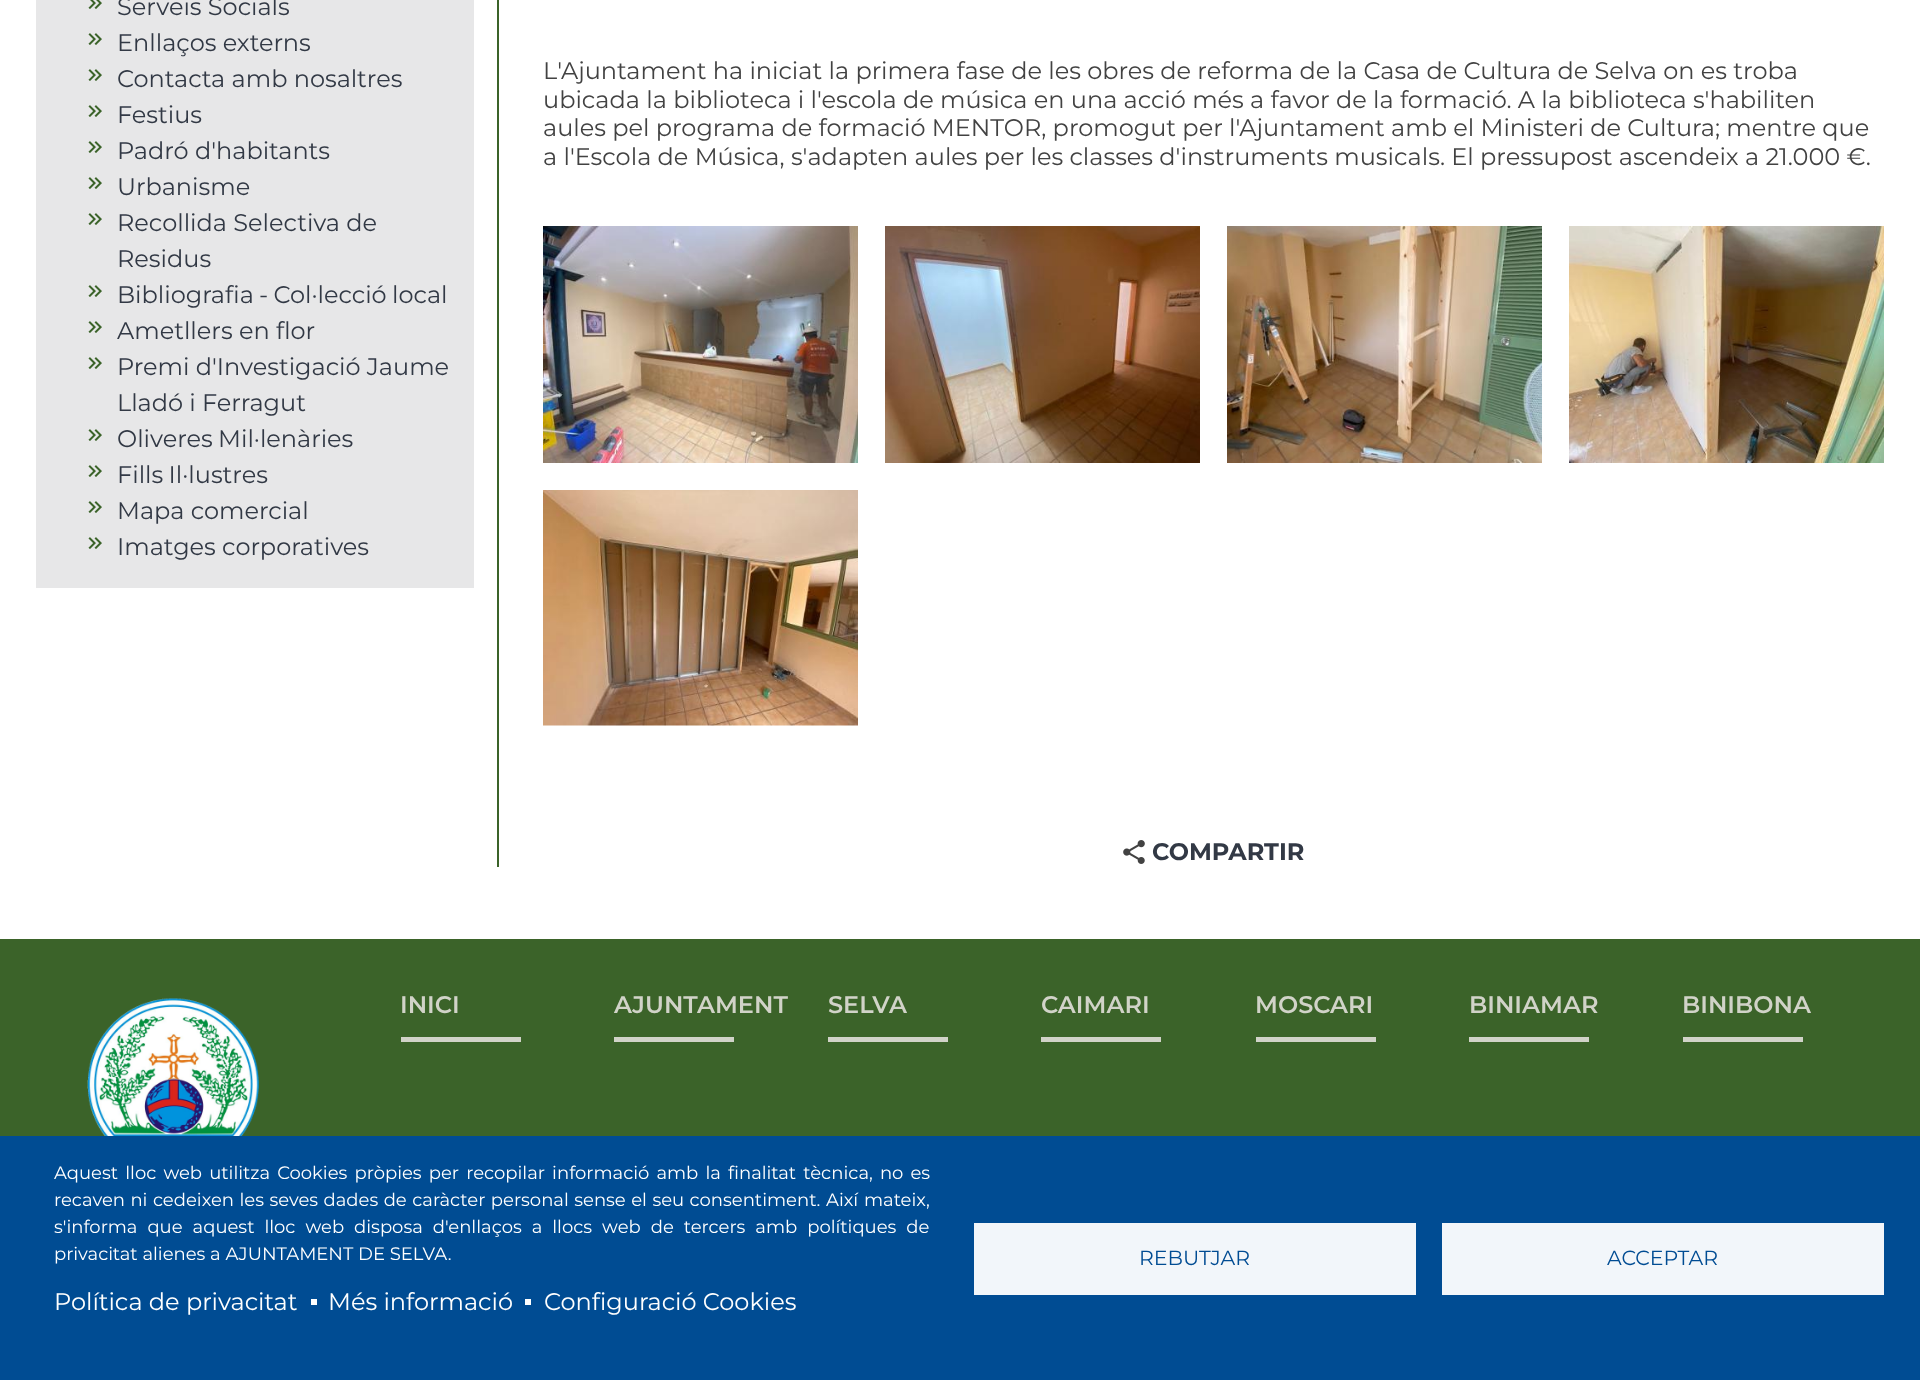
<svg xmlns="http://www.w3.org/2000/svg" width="1920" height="1380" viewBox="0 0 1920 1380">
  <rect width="100%" height="100%" fill="#ffffff"/>
  <rect x="497" y="0" width="2" height="867" fill="#3b6329"/>
  <rect x="36" y="0" width="438" height="588" fill="#e7e7e8"/>
  <image x="88" y="0" width="14" height="9" href="img1.png"/>
  <text x="117" y="15" font-family="Montserrat" font-size="24" fill="#323945">Serveis Socials</text>
  <image x="88" y="33" width="14" height="12" href="img2.png"/>
  <text x="117" y="51" font-family="Montserrat" font-size="24" fill="#323945">Enllaços externs</text>
  <image x="88" y="69" width="14" height="12" href="img2.png"/>
  <text x="117" y="87" font-family="Montserrat" font-size="24" fill="#323945">Contacta amb nosaltres</text>
  <image x="88" y="105" width="14" height="12" href="img2.png"/>
  <text x="117" y="123" font-family="Montserrat" font-size="24" fill="#323945">Festius</text>
  <image x="88" y="141" width="14" height="12" href="img2.png"/>
  <text x="117" y="159" font-family="Montserrat" font-size="24" fill="#323945">Padró d'habitants</text>
  <image x="88" y="177" width="14" height="12" href="img2.png"/>
  <text x="117" y="195" font-family="Montserrat" font-size="24" fill="#323945">Urbanisme</text>
  <image x="88" y="213" width="14" height="12" href="img2.png"/>
  <text x="117" y="231" font-family="Montserrat" font-size="24" fill="#323945">Recollida Selectiva de</text>
  <text x="117" y="267" font-family="Montserrat" font-size="24" fill="#323945">Residus</text>
  <image x="88" y="285" width="14" height="12" href="img2.png"/>
  <text x="117" y="303" word-spacing="-1" font-family="Montserrat" font-size="24" fill="#323945">Bibliografia - Col·lecció local</text>
  <image x="88" y="321" width="14" height="12" href="img2.png"/>
  <text x="117" y="339" font-family="Montserrat" font-size="24" fill="#323945">Ametllers en flor</text>
  <image x="88" y="357" width="14" height="12" href="img2.png"/>
  <text x="117" y="375" font-family="Montserrat" font-size="24" fill="#323945">Premi d'Investigació Jaume</text>
  <text x="117" y="411" font-family="Montserrat" font-size="24" fill="#323945">Lladó i Ferragut</text>
  <image x="88" y="429" width="14" height="12" href="img2.png"/>
  <text x="117" y="447" word-spacing="-1" font-family="Montserrat" font-size="24" fill="#323945">Oliveres Mil·lenàries</text>
  <image x="88" y="465" width="14" height="12" href="img2.png"/>
  <text x="117" y="483" word-spacing="-1" font-family="Montserrat" font-size="24" fill="#323945">Fills Il·lustres</text>
  <image x="88" y="501" width="14" height="12" href="img2.png"/>
  <text x="117" y="519" font-family="Montserrat" font-size="24" fill="#323945">Mapa comercial</text>
  <image x="88" y="537" width="14" height="12" href="img2.png"/>
  <text x="117" y="555" font-family="Montserrat" font-size="24" fill="#323945">Imatges corporatives</text>
  <text x="543" y="79" font-family="Montserrat" font-size="24" fill="#424242">L'Ajuntament ha iniciat la primera fase de les obres de reforma de la Casa de Cultura de Selva on es troba</text>
  <text x="543" y="108" font-family="Montserrat" font-size="24" fill="#424242">ubicada la biblioteca i l'escola de música en una acció més a favor de la formació. A la biblioteca s'habiliten</text>
  <text x="543" y="136" font-family="Montserrat" font-size="24" fill="#424242">aules pel programa de formació MENTOR, promogut per l'Ajuntament amb el Ministeri de Cultura; mentre que</text>
  <text x="543" y="165" font-family="Montserrat" font-size="24" fill="#424242">a l'Escola de Música, s'adapten aules per les classes d'instruments musicals. El pressupost ascendeix a 21.000 €.</text>
  <image x="543" y="226" width="315" height="237" href="img3.png"/>
  <image x="885" y="226" width="315" height="237" href="img4.png"/>
  <image x="1227" y="226" width="315" height="237" href="img5.png"/>
  <image x="1569" y="226" width="315" height="237" href="img6.png"/>
  <image x="543" y="490" width="315" height="236" href="img7.png"/>
  <image x="1123" y="840" width="22" height="24" href="img8.png"/>
  <text x="1152" y="860" font-family="Montserrat" font-size="24" font-weight="bold" fill="#323945">COMPARTIR</text>
  <rect x="0" y="939" width="1920" height="197" fill="#3b6329"/>
  <image x="87" y="998" width="172" height="138" href="img9.png"/>
  <text x="400" y="1013" font-family="Montserrat" font-size="24" font-weight="600" fill="#d1d3c8">INICI</text>
  <rect x="401" y="1037" width="120" height="5" fill="#d1d3c8"/>
  <text x="614" y="1013" font-family="Montserrat" font-size="24" font-weight="600" fill="#d1d3c8">AJUNTAMENT</text>
  <rect x="614" y="1037" width="120" height="5" fill="#d1d3c8"/>
  <text x="828" y="1013" font-family="Montserrat" font-size="24" font-weight="600" fill="#d1d3c8">SELVA</text>
  <rect x="828" y="1037" width="120" height="5" fill="#d1d3c8"/>
  <text x="1041" y="1013" font-family="Montserrat" font-size="24" font-weight="600" fill="#d1d3c8">CAIMARI</text>
  <rect x="1041" y="1037" width="120" height="5" fill="#d1d3c8"/>
  <text x="1255" y="1013" font-family="Montserrat" font-size="24" font-weight="600" fill="#d1d3c8">MOSCARI</text>
  <rect x="1256" y="1037" width="120" height="5" fill="#d1d3c8"/>
  <text x="1469" y="1013" font-family="Montserrat" font-size="24" font-weight="600" fill="#d1d3c8">BINIAMAR</text>
  <rect x="1469" y="1037" width="120" height="5" fill="#d1d3c8"/>
  <text x="1682" y="1013" font-family="Montserrat" font-size="24" font-weight="600" fill="#d1d3c8">BINIBONA</text>
  <rect x="1683" y="1037" width="120" height="5" fill="#d1d3c8"/>
  <rect x="0" y="1136" width="1920" height="244" fill="#004c93"/>
  <text x="54" y="1179" word-spacing="2.4" font-family="Montserrat" font-size="18" fill="#ffffff">Aquest lloc web utilitza Cookies pròpies per recopilar informació amb la finalitat tècnica, no es</text>
  <text x="54" y="1206" word-spacing="0.75" font-family="Montserrat" font-size="18" fill="#ffffff">recaven ni cedeixen les seves dades de caràcter personal sense el seu consentiment.</text>
  <text x="826" y="1206" word-spacing="1" font-family="Montserrat" font-size="18" fill="#ffffff">Així mateix,</text>
  <text x="54" y="1233" word-spacing="5.25" font-family="Montserrat" font-size="18" fill="#ffffff">s'informa que aquest lloc web disposa d'enllaços a llocs web de tercers amb polítiques de</text>
  <text x="54" y="1260" font-family="Montserrat" font-size="18" fill="#ffffff">privacitat alienes a AJUNTAMENT DE SELVA.</text>
  <text x="54" y="1310" font-family="Montserrat" font-size="24" fill="#ffffff">Política de privacitat</text>
  <rect x="311" y="1299" width="6" height="6" fill="#ffffff"/>
  <text x="328" y="1310" font-family="Montserrat" font-size="24" fill="#ffffff">Més informació</text>
  <rect x="525" y="1299" width="6" height="6" fill="#ffffff"/>
  <text x="544" y="1310" font-family="Montserrat" font-size="24" fill="#ffffff">Configuració Cookies</text>
  <rect x="974" y="1223" width="442" height="72" fill="#f2f6fa"/>
  <text x="1139" y="1265" font-family="Montserrat" font-size="20.5" fill="#004c93">REBUTJAR</text>
  <rect x="1442" y="1223" width="442" height="72" fill="#f2f6fa"/>
  <text x="1607" y="1265" font-family="Montserrat" font-size="20.5" fill="#004c93">ACCEPTAR</text>
</svg>
